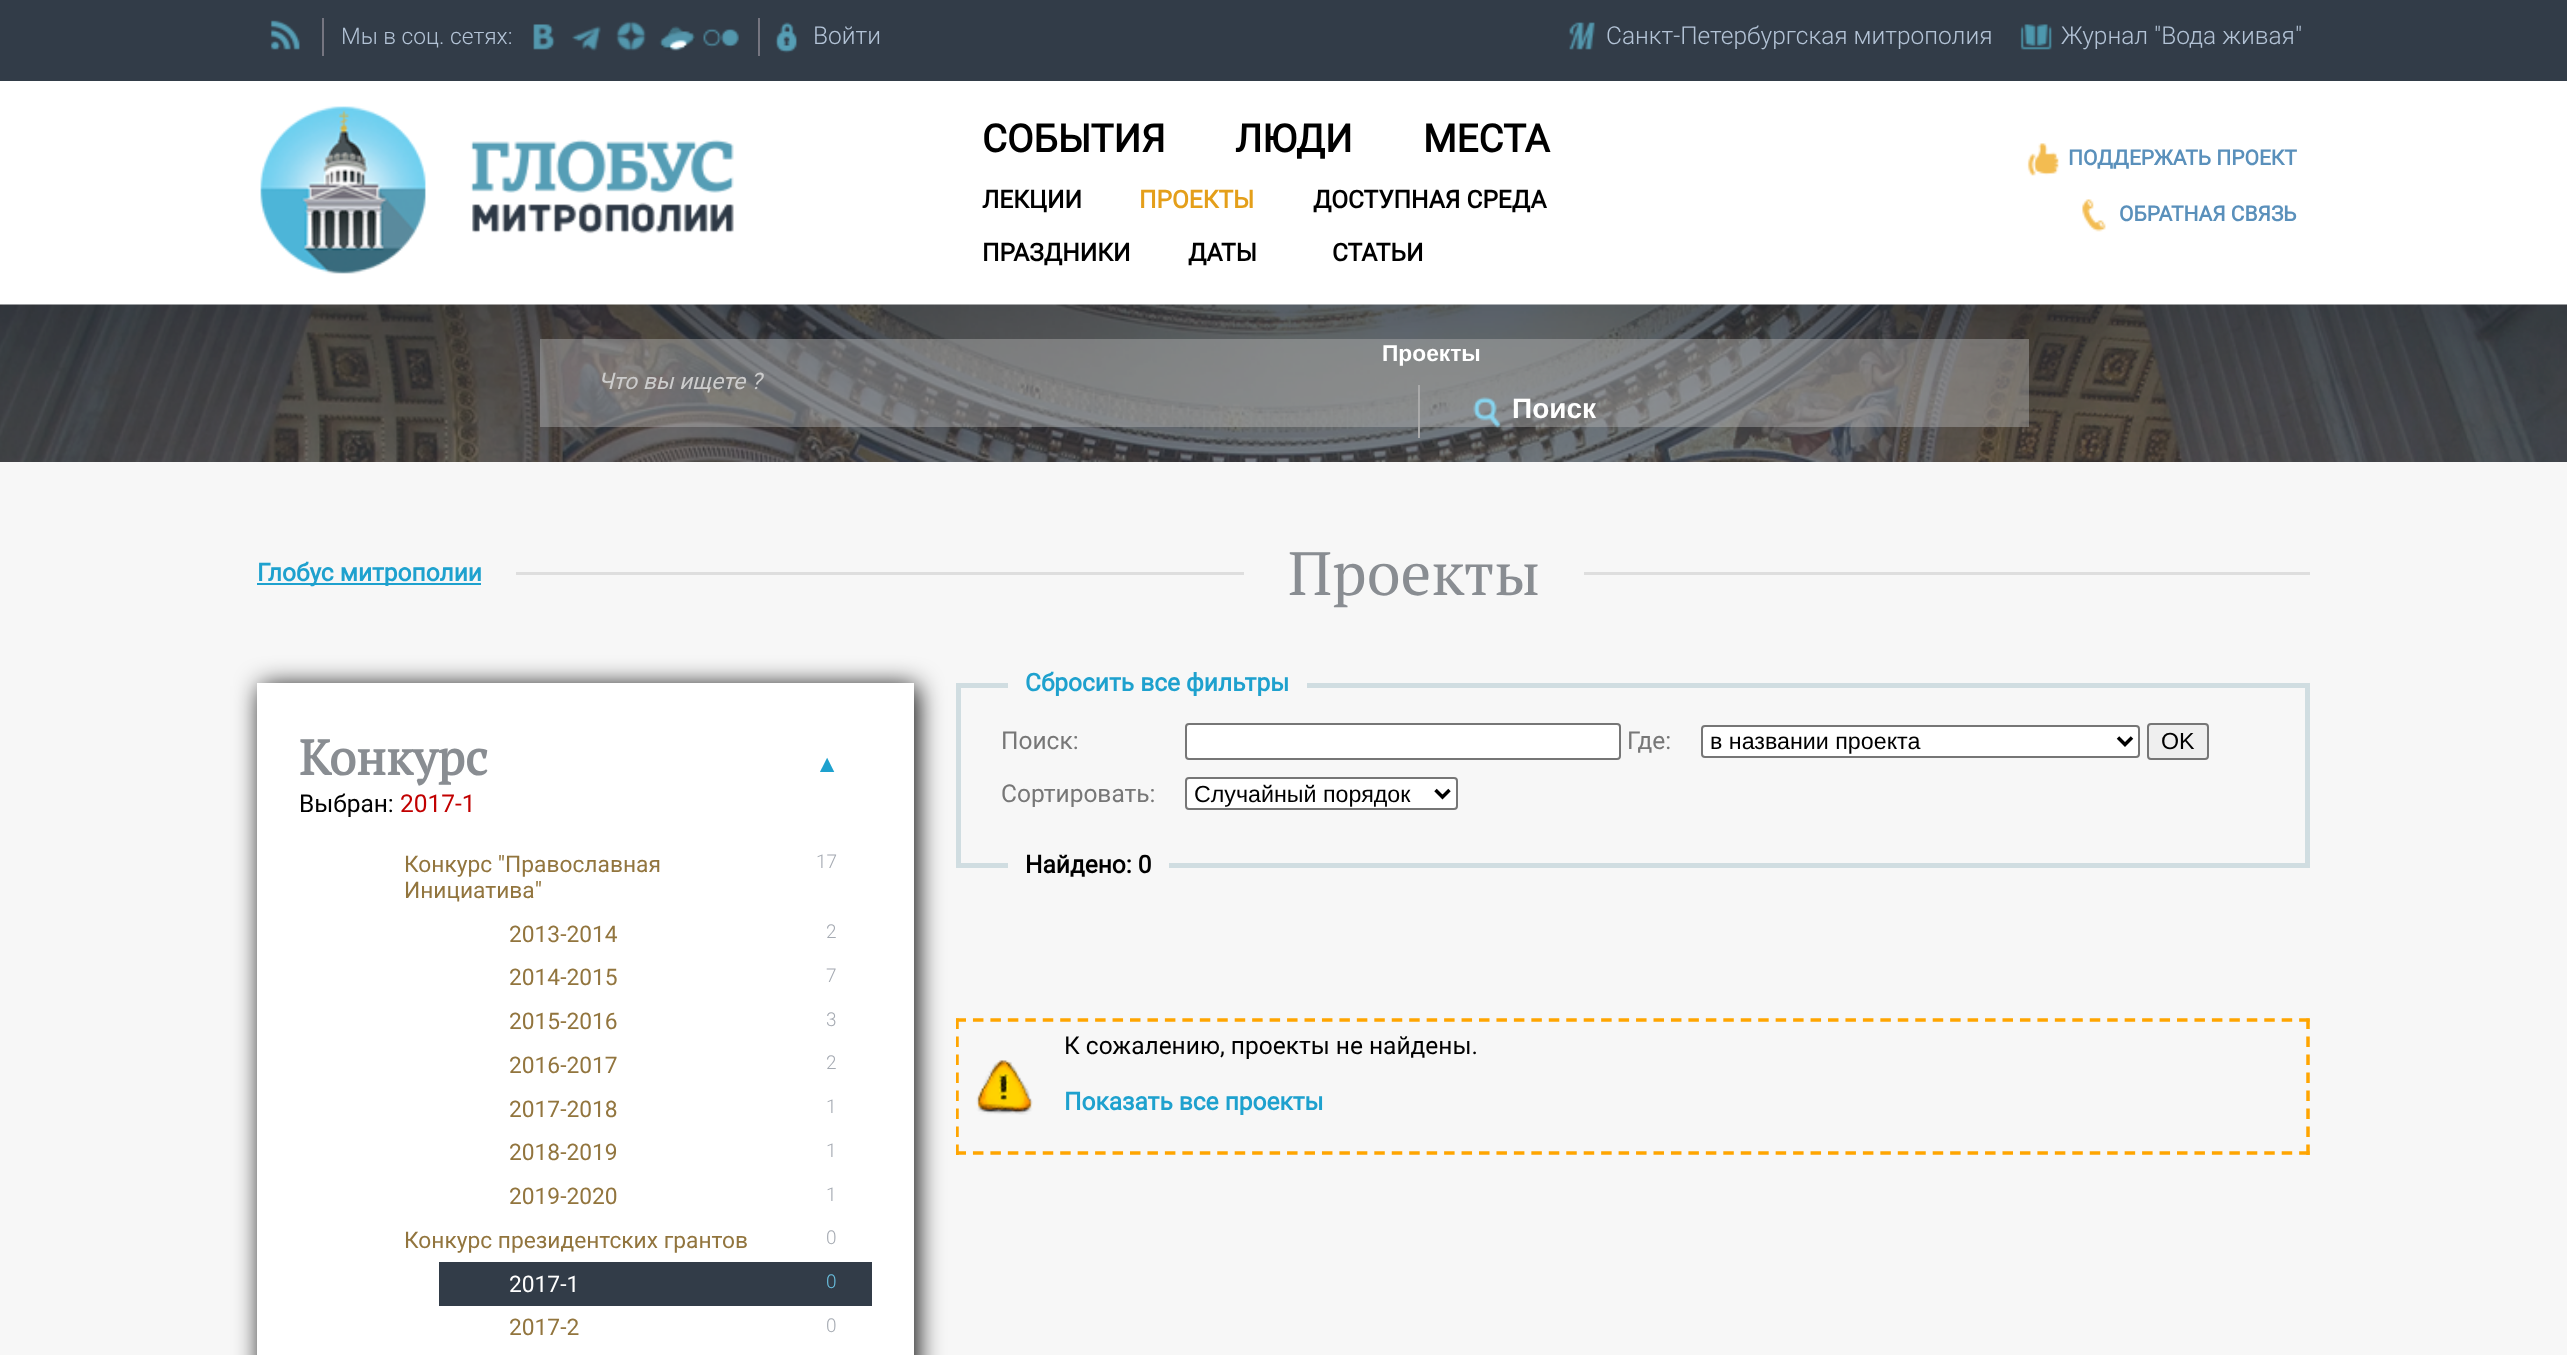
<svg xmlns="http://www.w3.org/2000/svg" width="2567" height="1355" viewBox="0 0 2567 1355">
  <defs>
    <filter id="blur1" x="-50%" y="-200%" width="200%" height="500%"><feGaussianBlur stdDeviation="13"/></filter>
    <clipPath id="clip1"><rect x="956" y="1001" width="1354" height="172"/></clipPath>
  </defs>
  <rect width="100%" height="100%" fill="#ffffff"/>
  <rect x="0" y="0" width="2567" height="81" fill="#323c48"/>
  <image x="270" y="20" width="30" height="30" href="img1.png"/>
  <rect x="322" y="18" width="2" height="38" fill="#757580"/>
  <text x="341" y="44" font-family="Roboto" font-size="22.75" font-weight="300" fill="#b3c3d6">Мы в соц. сетях:</text>
  <image x="533" y="24" width="22" height="26" href="img2.png"/>
  <image x="572" y="26" width="29" height="25" href="img3.png"/>
  <image x="616" y="21" width="30" height="30" href="img4.png"/>
  <image x="659" y="26" width="36" height="25" href="img5.png"/>
  <image x="703" y="28" width="36" height="20" href="img6.png"/>
  <rect x="758" y="18" width="2" height="38" fill="#757580"/>
  <image x="775" y="22" width="22" height="31" href="img7.png"/>
  <text x="813" y="44" font-family="Roboto" font-size="24.5" font-weight="300" fill="#b3c3d6">Войти</text>
  <image x="1569" y="22" width="26" height="28" href="img8.png"/>
  <text x="1606" y="44" font-family="Roboto" font-size="24.5" font-weight="300" fill="#b3c3d6">Санкт-Петербургская митрополия</text>
  <image x="2020" y="24" width="32" height="26" href="img9.png"/>
  <text x="2061" y="44" font-family="Roboto" font-size="24.5" font-weight="300" fill="#b3c3d6">Журнал "Вода живая"</text>
  <image x="260" y="106" width="474" height="168" href="img10.png"/>
  <text x="982" y="152" font-family="Roboto" font-size="38.5" font-weight="bold" fill="#000000">СОБЫТИЯ</text>
  <text x="1235" y="152" font-family="Roboto" font-size="38.5" font-weight="bold" fill="#000000">ЛЮДИ</text>
  <text x="1423" y="152" font-family="Roboto" font-size="38.5" font-weight="bold" fill="#000000">МЕСТА</text>
  <text x="982" y="208" font-family="Roboto" font-size="24.5" font-weight="bold" fill="#000000">ЛЕКЦИИ</text>
  <text x="1139" y="208" font-family="Roboto" font-size="24.5" font-weight="bold" fill="#e49f1a">ПРОЕКТЫ</text>
  <text x="1313" y="208" font-family="Roboto" font-size="24.5" font-weight="bold" fill="#000000">ДОСТУПНАЯ СРЕДА</text>
  <text x="982" y="261" font-family="Roboto" font-size="24.5" font-weight="bold" fill="#000000">ПРАЗДНИКИ</text>
  <text x="1188" y="261" font-family="Roboto" font-size="24.5" font-weight="bold" fill="#000000">ДАТЫ</text>
  <text x="1332" y="261" font-family="Roboto" font-size="24.5" font-weight="bold" fill="#000000">СТАТЬИ</text>
  <image x="2027" y="143" width="32" height="33" href="img11.png"/>
  <text x="2068" y="165" font-family="Roboto" font-size="21" font-weight="bold" fill="#5a90bb">ПОДДЕРЖАТЬ ПРОЕКТ</text>
  <image x="2082" y="199" width="24" height="33" href="img12.png"/>
  <text x="2119" y="221" font-family="Roboto" font-size="21" font-weight="bold" fill="#5a90bb">ОБРАТНАЯ СВЯЗЬ</text>
  <image x="0" y="304" width="2567" height="158" href="img13.png"/>
  <rect x="540" y="339" width="1489" height="88" fill="#b6b6b6" fill-opacity="0.43"/>
  <text x="1382" y="361" font-family="Liberation Sans" font-size="22.75" font-weight="bold" fill="#ffffff">Проекты</text>
  <text x="598" y="389" font-family="Roboto" font-size="22.75" font-style="italic" fill="#cccccc">Что вы ищете ?</text>
  <rect x="1418" y="385" width="2" height="53" fill="#aaaaaa"/>
  <image x="1473" y="397" width="28" height="31" href="img14.png"/>
  <text x="1512" y="418" font-family="Liberation Sans" font-size="28" font-weight="bold" fill="#ffffff">Поиск</text>
  <rect x="0" y="462" width="2567" height="893" fill="#f7f7f7"/>
  <rect x="257" y="583" width="224" height="2" fill="#1ea1ce"/>
  <text x="257" y="581" font-family="Roboto" font-size="24.5" font-weight="bold" fill="#1ea1ce">Глобус митрополии</text>
  <rect x="516" y="572" width="1794" height="3" fill="#dedede"/>
  <rect x="1244" y="572" width="340" height="3" fill="#f7f7f7"/>
  <text x="1288" y="595" font-family="PT Serif" font-size="61.25" fill="#898d92">Проекты</text>
  <rect x="261" y="686" width="656" height="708" fill="#000000" filter="url(#blur1)"/>
  <rect x="257" y="683" width="657" height="672" fill="#ffffff"/>
  <text x="299" y="775" font-family="PT Serif" font-size="49" font-weight="bold" fill="#898d92">Конкурс</text>
  <text x="815" y="772" font-family="Liberation Sans" font-size="24.5" font-weight="bold" fill="#1ea1ce">▲</text>
  <text x="299" y="812" font-family="Roboto" font-size="24.5" fill="#000000">Выбран:</text>
  <text x="400" y="812" font-family="Roboto" font-size="24.5" fill="#c10000">2017-1</text>
  <text x="404" y="872" font-family="Roboto" font-size="22.75" fill="#92753e">Конкурс "Православная</text>
  <text x="404" y="898" font-family="Roboto" font-size="22.75" fill="#92753e">Инициатива"</text>
  <text x="816" y="868" font-family="'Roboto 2'" font-size="19" font-weight="300" fill="#a5aab2">17</text>
  <text x="509" y="942" font-family="Roboto" font-size="22.75" fill="#92753e">2013-2014</text>
  <text x="826" y="938" font-family="'Roboto 2'" font-size="19" font-weight="300" fill="#a5aab2">2</text>
  <text x="509" y="985" font-family="Roboto" font-size="22.75" fill="#92753e">2014-2015</text>
  <text x="826" y="982" font-family="'Roboto 2'" font-size="19" font-weight="300" fill="#a5aab2">7</text>
  <text x="509" y="1029" font-family="Roboto" font-size="22.75" fill="#92753e">2015-2016</text>
  <text x="826" y="1026" font-family="'Roboto 2'" font-size="19" font-weight="300" fill="#a5aab2">3</text>
  <text x="509" y="1073" font-family="Roboto" font-size="22.75" fill="#92753e">2016-2017</text>
  <text x="826" y="1069" font-family="'Roboto 2'" font-size="19" font-weight="300" fill="#a5aab2">2</text>
  <text x="509" y="1117" font-family="Roboto" font-size="22.75" fill="#92753e">2017-2018</text>
  <text x="826" y="1113" font-family="'Roboto 2'" font-size="19" font-weight="300" fill="#a5aab2">1</text>
  <text x="509" y="1160" font-family="Roboto" font-size="22.75" fill="#92753e">2018-2019</text>
  <text x="826" y="1157" font-family="'Roboto 2'" font-size="19" font-weight="300" fill="#a5aab2">1</text>
  <text x="509" y="1204" font-family="Roboto" font-size="22.75" fill="#92753e">2019-2020</text>
  <text x="826" y="1201" font-family="'Roboto 2'" font-size="19" font-weight="300" fill="#a5aab2">1</text>
  <text x="404" y="1248" font-family="Roboto" font-size="22.75" fill="#92753e">Конкурс президентских грантов</text>
  <text x="826" y="1244" font-family="'Roboto 2'" font-size="19" font-weight="300" fill="#a5aab2">0</text>
  <rect x="439" y="1262" width="433" height="44" fill="#323c48"/>
  <text x="509" y="1292" font-family="Roboto" font-size="22.75" fill="#ffffff">2017-1</text>
  <text x="826" y="1288" font-family="'Roboto 2'" font-size="19" font-weight="300" fill="#6bc2e2">0</text>
  <text x="509" y="1335" font-family="Roboto" font-size="22.75" fill="#92753e">2017-2</text>
  <text x="826" y="1332" font-family="'Roboto 2'" font-size="19" font-weight="300" fill="#a5aab2">0</text>
  <rect x="958.5" y="685.5" width="1349" height="180" fill="none" stroke="#d0dde1" stroke-width="5"/>
  <rect x="1008" y="683" width="299" height="5" fill="#f7f7f7"/>
  <text x="1025" y="691" font-family="Roboto" font-size="24.5" font-weight="bold" fill="#1ea1ce">Сбросить все фильтры</text>
  <text x="1001" y="749" font-family="Roboto" font-size="24.5" fill="#777777">Поиск:</text>
  <rect x="1186" y="724" width="434" height="35" rx="3" fill="#ffffff" stroke="#767676" stroke-width="2"/>
  <text x="1627" y="749" font-family="Roboto" font-size="24.5" fill="#777777">Где:</text>
  <rect x="1702" y="726" width="437" height="31" rx="3" fill="#ffffff" stroke="#767676" stroke-width="2"/>
  <path d="M2118 737.5L2125 744.5L2132 737.5" fill="none" stroke="#000000" stroke-width="3.5"/>
  <text x="1710" y="749" font-family="Liberation Sans" font-size="23.25" fill="#000000">в названии проекта</text>
  <rect x="2148" y="724" width="60" height="35" rx="3" fill="#efefef" stroke="#767676" stroke-width="2"/>
  <text x="2161" y="749" font-family="Liberation Sans" font-size="23.25" fill="#000000">OK</text>
  <text x="1001" y="802" font-family="Roboto" font-size="24.5" fill="#777777">Сортировать:</text>
  <rect x="1186" y="778" width="271" height="31" rx="3" fill="#ffffff" stroke="#767676" stroke-width="2"/>
  <path d="M1435.5 790L1442.5 797L1449.5 790" fill="none" stroke="#000000" stroke-width="3.5"/>
  <text x="1194" y="802" font-family="Liberation Sans" font-size="23.25" fill="#000000">Случайный порядок</text>
  <rect x="1008" y="863" width="161" height="5" fill="#f7f7f7"/>
  <text x="1025" y="873" font-family="Roboto" font-size="24.5" font-weight="bold" fill="#000000">Найдено: 0</text>
  <image x="976" y="1060" width="57" height="55" href="img15.png"/>
  <g clip-path="url(#clip1)">
    <path d="M955.5 1020H2310" fill="none" stroke="#ffa500" stroke-width="3.5" stroke-dasharray="10.5 6.95"/>
  </g>
  <path d="M2308 1018.5V1155" fill="none" stroke="#ffa500" stroke-width="3.5" stroke-dasharray="10.5 7.51"/>
  <g clip-path="url(#clip1)">
    <path d="M955.5 1153H2310" fill="none" stroke="#ffa500" stroke-width="3.5" stroke-dasharray="10.5 6.95"/>
    <path d="M957 1018.5V1155" fill="none" stroke="#ffa500" stroke-width="3.5" stroke-dasharray="10.5 7.51"/>
  </g>
  <text x="1064" y="1054" font-family="Roboto" font-size="24.5" fill="#000000">К сожалению, проекты не найдены.</text>
  <text x="1064" y="1110" font-family="Roboto" font-size="24.5" font-weight="bold" fill="#1ea1ce">Показать все проекты</text>
</svg>
